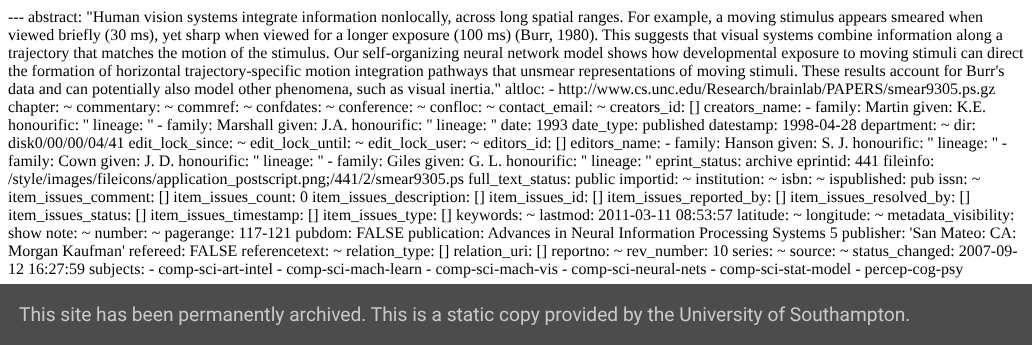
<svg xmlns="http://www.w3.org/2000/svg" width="1032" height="345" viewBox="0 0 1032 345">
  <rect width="100%" height="100%" fill="#ffffff"/>
  <text x="8" y="22" font-family="Liberation Serif" font-size="16" fill="#000000">--- abstract: "Human vision systems integrate information nonlocally, across long spatial ranges. For example, a moving stimulus appears smeared when</text>
  <text x="8" y="40" font-family="Liberation Serif" font-size="16" fill="#000000">viewed briefly (30 ms), yet sharp when viewed for a longer exposure (100 ms) (Burr, 1980). This suggests that visual systems combine information along a</text>
  <text x="8" y="58" font-family="Liberation Serif" font-size="16" fill="#000000">trajectory that matches the motion of the stimulus. Our self-organizing neural network model shows how developmental exposure to moving stimuli can direct</text>
  <text x="8" y="76" font-family="Liberation Serif" font-size="16" fill="#000000">the formation of horizontal trajectory-specific motion integration pathways that unsmear representations of moving stimuli. These results account for Burr's</text>
  <text x="8" y="94" font-family="Liberation Serif" font-size="16" fill="#000000">data and can potentially also model other phenomena, such as visual inertia." altloc: - http://www.cs.unc.edu/Research/brainlab/PAPERS/smear9305.ps.gz</text>
  <text x="8" y="112" font-family="Liberation Serif" font-size="16" fill="#000000">chapter: ~ commentary: ~ commref: ~ confdates: ~ conference: ~ confloc: ~ contact_email: ~ creators_id: [] creators_name: - family: Martin given: K.E.</text>
  <text x="8" y="130" font-family="Liberation Serif" font-size="16" fill="#000000">honourific: '' lineage: '' - family: Marshall given: J.A. honourific: '' lineage: '' date: 1993 date_type: published datestamp: 1998-04-28 department: ~ dir:</text>
  <text x="8" y="148" font-family="Liberation Serif" font-size="16" fill="#000000">disk0/00/00/04/41 edit_lock_since: ~ edit_lock_until: ~ edit_lock_user: ~ editors_id: [] editors_name: - family: Hanson given: S. J. honourific: '' lineage: '' -</text>
  <text x="8" y="166" font-family="Liberation Serif" font-size="16" fill="#000000">family: Cown given: J. D. honourific: '' lineage: '' - family: Giles given: G. L. honourific: '' lineage: '' eprint_status: archive eprintid: 441 fileinfo:</text>
  <text x="8" y="184" font-family="Liberation Serif" font-size="16" fill="#000000">/style/images/fileicons/application_postscript.png;/441/2/smear9305.ps full_text_status: public importid: ~ institution: ~ isbn: ~ ispublished: pub issn: ~</text>
  <text x="8" y="202" font-family="Liberation Serif" font-size="16" fill="#000000">item_issues_comment: [] item_issues_count: 0 item_issues_description: [] item_issues_id: [] item_issues_reported_by: [] item_issues_resolved_by: []</text>
  <text x="8" y="220" font-family="Liberation Serif" font-size="16" fill="#000000">item_issues_status: [] item_issues_timestamp: [] item_issues_type: [] keywords: ~ lastmod: 2011-03-11 08:53:57 latitude: ~ longitude: ~ metadata_visibility:</text>
  <text x="8" y="238" font-family="Liberation Serif" font-size="16" fill="#000000">show note: ~ number: ~ pagerange: 117-121 pubdom: FALSE publication: Advances in Neural Information Processing Systems 5 publisher: 'San Mateo: CA:</text>
  <text x="8" y="256" font-family="Liberation Serif" font-size="16" fill="#000000">Morgan Kaufman' refereed: FALSE referencetext: ~ relation_type: [] relation_uri: [] reportno: ~ rev_number: 10 series: ~ source: ~ status_changed: 2007-09-</text>
  <text x="8" y="274" font-family="Liberation Serif" font-size="16" fill="#000000">12 16:27:59 subjects: - comp-sci-art-intel - comp-sci-mach-learn - comp-sci-mach-vis - comp-sci-neural-nets - comp-sci-stat-model - percep-cog-psy</text>
  <rect x="0" y="284" width="1032" height="61" fill="#000000" fill-opacity="0.7"/>
  <text x="19" y="321" font-family="Roboto" font-size="19.2" fill="#c9c9c9">This site has been permanently archived. This is a static copy provided by the University of Southampton.</text>
</svg>
